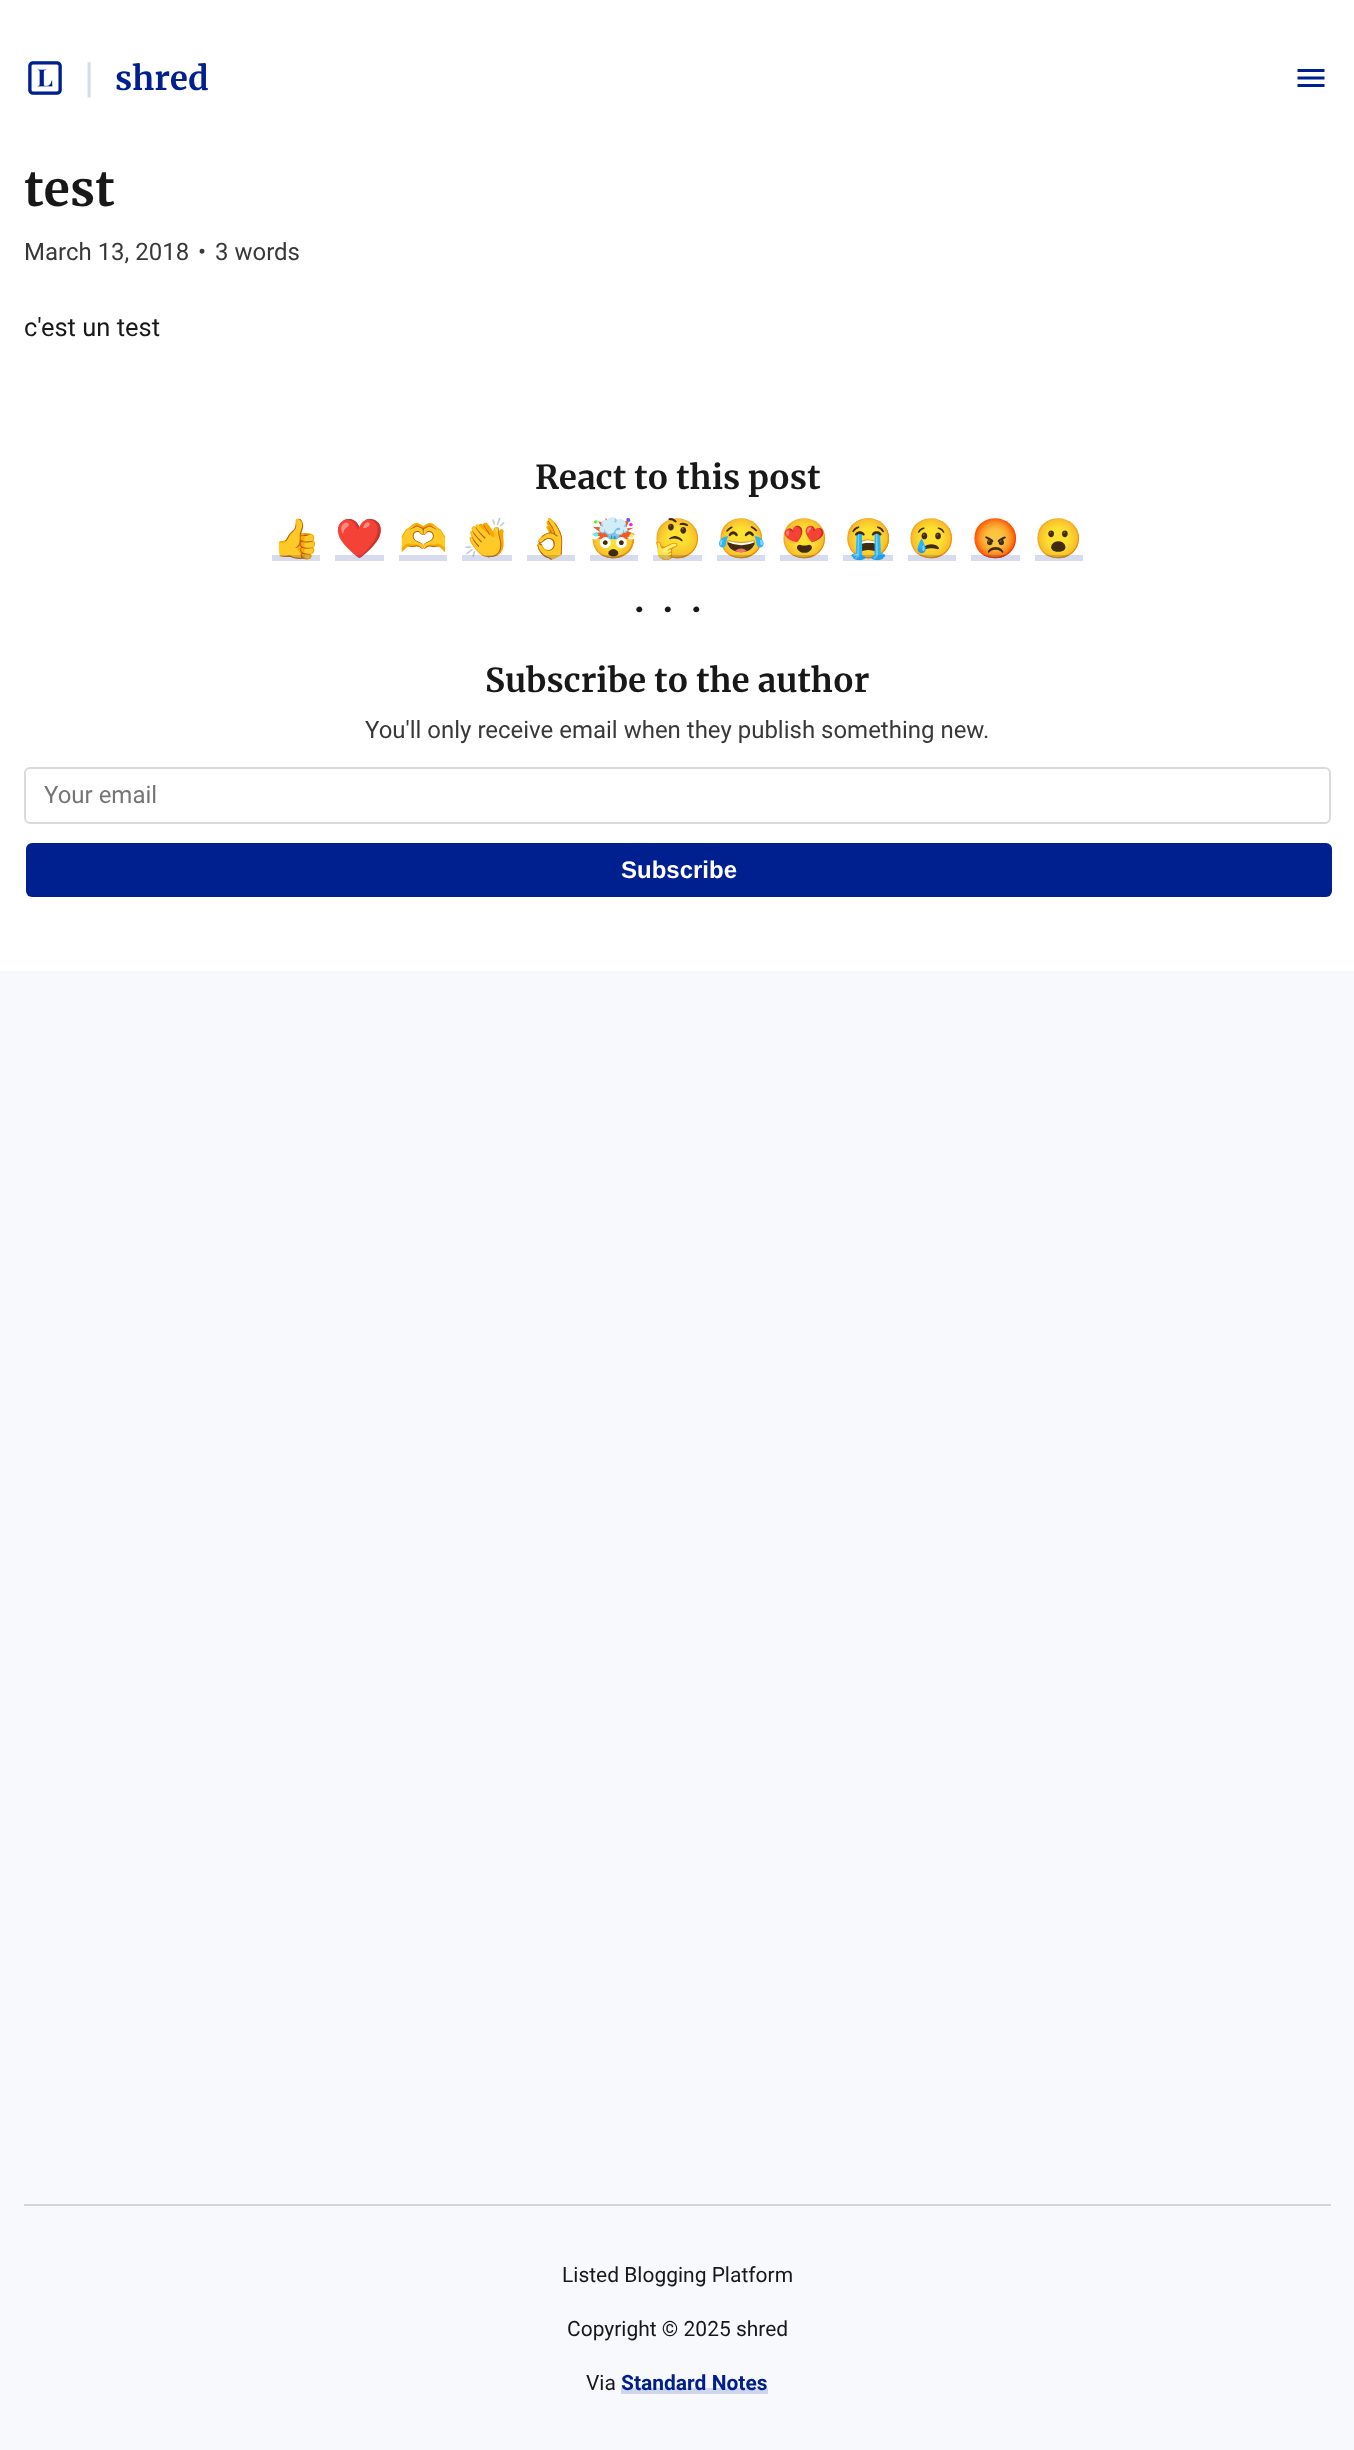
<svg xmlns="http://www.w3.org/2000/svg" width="1354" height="2450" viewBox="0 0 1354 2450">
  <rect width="100%" height="100%" fill="#f8f9fc"/>
  <rect x="0" y="0" width="1354" height="971" fill="#ffffff"/>
  <image x="28" y="61" width="34" height="34" href="img1.png"/>
  <text x="84" y="92" font-family="Roboto" font-size="42" fill="#d6dbed">|</text>
  <text x="115" y="90" font-family="Merriweather" font-size="33" font-weight="bold" fill="#00208f">shred</text>
  <image x="1297" y="69" width="28" height="18" href="img2.png"/>
  <text x="24" y="206" font-family="Merriweather" font-size="48" font-weight="bold" fill="#181818">test</text>
  <text x="24" y="260" font-family="Roboto" font-size="24" fill="#383838">March 13, 2018</text>
  <text x="198" y="260" font-family="Roboto" font-size="24" fill="#383838">•</text>
  <text x="215" y="260" font-family="Roboto" font-size="24" fill="#383838">3 words</text>
  <text x="24" y="336" font-family="Roboto" font-size="25.5" fill="#181818">c'est un test</text>
  <text x="535" y="489" font-family="Merriweather" font-size="33" font-weight="bold" fill="#181818">React to this post</text>
  <text x="272" y="552" font-family="Noto Color Emoji" font-size="39" font-weight="bold" fill="#00208f">👍</text>
  <rect x="272" y="555" width="48" height="6" fill="#00208f" fill-opacity="0.16"/>
  <text x="335" y="552" font-family="Noto Color Emoji" font-size="39" font-weight="bold" fill="#00208f">❤️</text>
  <rect x="335" y="555" width="49" height="6" fill="#00208f" fill-opacity="0.16"/>
  <text x="399" y="552" font-family="Noto Color Emoji" font-size="39" font-weight="bold" fill="#00208f">🫶</text>
  <rect x="399" y="555" width="48" height="6" fill="#00208f" fill-opacity="0.16"/>
  <text x="462" y="552" font-family="Noto Color Emoji" font-size="39" font-weight="bold" fill="#00208f">👏</text>
  <rect x="462" y="555" width="50" height="6" fill="#00208f" fill-opacity="0.16"/>
  <text x="526" y="552" font-family="Noto Color Emoji" font-size="39" font-weight="bold" fill="#00208f">👌</text>
  <rect x="527" y="555" width="48" height="6" fill="#00208f" fill-opacity="0.16"/>
  <text x="589" y="552" font-family="Noto Color Emoji" font-size="39" font-weight="bold" fill="#00208f">🤯</text>
  <rect x="590" y="555" width="48" height="6" fill="#00208f" fill-opacity="0.16"/>
  <text x="653" y="552" font-family="Noto Color Emoji" font-size="39" font-weight="bold" fill="#00208f">🤔</text>
  <rect x="653" y="555" width="49" height="6" fill="#00208f" fill-opacity="0.16"/>
  <text x="717" y="552" font-family="Noto Color Emoji" font-size="39" font-weight="bold" fill="#00208f">😂</text>
  <rect x="717" y="555" width="48" height="6" fill="#00208f" fill-opacity="0.16"/>
  <text x="780" y="552" font-family="Noto Color Emoji" font-size="39" font-weight="bold" fill="#00208f">😍</text>
  <rect x="780" y="555" width="48" height="6" fill="#00208f" fill-opacity="0.16"/>
  <text x="844" y="552" font-family="Noto Color Emoji" font-size="39" font-weight="bold" fill="#00208f">😭</text>
  <rect x="843" y="555" width="50" height="6" fill="#00208f" fill-opacity="0.16"/>
  <text x="907" y="552" font-family="Noto Color Emoji" font-size="39" font-weight="bold" fill="#00208f">😢</text>
  <rect x="908" y="555" width="48" height="6" fill="#00208f" fill-opacity="0.16"/>
  <text x="971" y="552" font-family="Noto Color Emoji" font-size="39" font-weight="bold" fill="#00208f">😡</text>
  <rect x="971" y="555" width="49" height="6" fill="#00208f" fill-opacity="0.16"/>
  <text x="1034" y="552" font-family="Noto Color Emoji" font-size="39" font-weight="bold" fill="#00208f">😮</text>
  <rect x="1035" y="555" width="48" height="6" fill="#00208f" fill-opacity="0.16"/>
  <text x="634" y="612" font-family="Merriweather" font-size="36" font-weight="bold" letter-spacing="18" fill="#181818">...</text>
  <text x="485" y="692" font-family="Merriweather" font-size="33" font-weight="bold" fill="#181818">Subscribe to the author</text>
  <text x="365" y="738" font-family="Roboto" font-size="24" fill="#383838">You'll only receive email when they publish something new.</text>
  <rect x="25" y="768" width="1305" height="55" rx="5" fill="none" stroke="#dadada" stroke-width="2"/>
  <text x="44" y="803" font-family="Roboto" font-size="24" fill="#757575">Your email</text>
  <rect x="26" y="843" width="1306" height="54" rx="6" fill="#00208f"/>
  <text x="621" y="878" font-family="Liberation Sans" font-size="24" font-weight="bold" fill="#ffffff">Subscribe</text>
  <rect x="24" y="2204" width="1307" height="2" fill="#d4d5d8"/>
  <text x="562" y="2282" font-family="Roboto" font-size="21" fill="#181818">Listed Blogging Platform</text>
  <text x="567" y="2336" font-family="Roboto" font-size="21" fill="#181818">Copyright © 2025 shred</text>
  <text x="586" y="2390" font-family="Roboto" font-size="21" fill="#181818">Via</text>
  <text x="621" y="2390" font-family="Roboto" font-size="21" font-weight="bold" fill="#00208f">Standard Notes</text>
  <rect x="621" y="2388" width="147" height="6" fill="#00208f" fill-opacity="0.16"/>
</svg>
